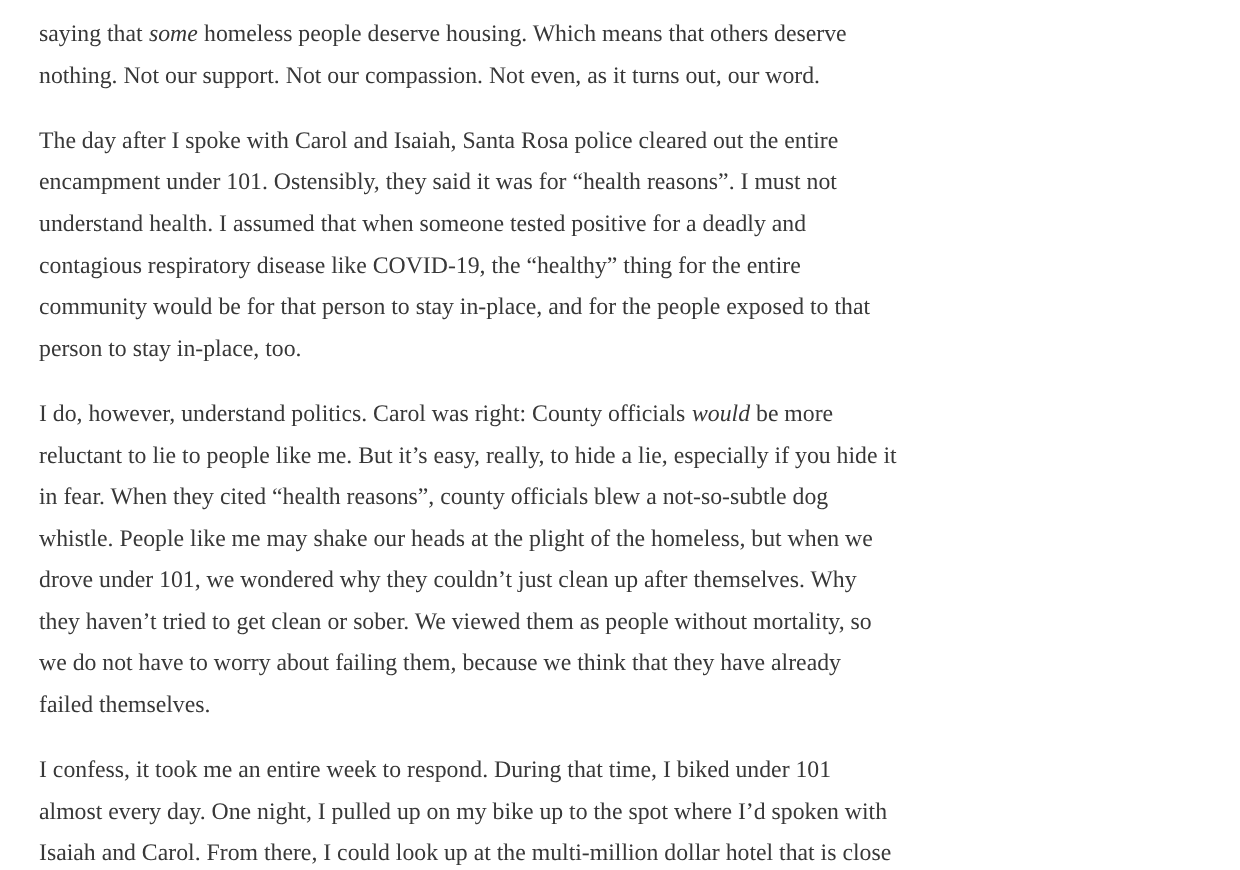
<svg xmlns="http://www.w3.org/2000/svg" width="1240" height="870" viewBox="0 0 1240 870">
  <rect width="100%" height="100%" fill="#ffffff"/>
  <text x="39" y="41" font-family="Liberation Serif" font-size="23.75" fill="#383838">saying that</text>
  <text x="149" y="41" font-family="Liberation Serif" font-size="23.75" font-style="italic" fill="#383838">some</text>
  <text x="204" y="41" font-family="Liberation Serif" font-size="23.75" fill="#383838">homeless people deserve housing. Which means that others deserve</text>
  <text x="39" y="83" font-family="Liberation Serif" font-size="23.75" fill="#383838">nothing. Not our support. Not our compassion. Not even, as it turns out, our word.</text>
  <text x="39" y="148" font-family="Liberation Serif" font-size="23.75" fill="#383838">The day after I spoke with Carol and Isaiah, Santa Rosa police cleared out the entire</text>
  <text x="39" y="189" font-family="Liberation Serif" font-size="23.75" fill="#383838">encampment under 101. Ostensibly, they said it was for “health reasons”. I must not</text>
  <text x="39" y="231" font-family="Liberation Serif" font-size="23.75" fill="#383838">understand health. I assumed that when someone tested positive for a deadly and</text>
  <text x="39" y="273" font-family="Liberation Serif" font-size="23.75" fill="#383838">contagious respiratory disease like COVID-19, the “healthy” thing for the entire</text>
  <text x="39" y="314" font-family="Liberation Serif" font-size="23.75" fill="#383838">community would be for that person to stay in-place, and for the people exposed to that</text>
  <text x="39" y="356" font-family="Liberation Serif" font-size="23.75" fill="#383838">person to stay in-place, too.</text>
  <text x="39" y="421" font-family="Liberation Serif" font-size="23.75" fill="#383838">I do, however, understand politics. Carol was right: County officials</text>
  <text x="692" y="421" font-family="Liberation Serif" font-size="23.75" font-style="italic" fill="#383838">would</text>
  <text x="756" y="421" font-family="Liberation Serif" font-size="23.75" fill="#383838">be more</text>
  <text x="39" y="463" font-family="Liberation Serif" font-size="23.75" fill="#383838">reluctant to lie to people like me. But it’s easy, really, to hide a lie, especially if you hide it</text>
  <text x="39" y="504" font-family="Liberation Serif" font-size="23.75" fill="#383838">in fear. When they cited “health reasons”, county officials blew a not-so-subtle dog</text>
  <text x="39" y="546" font-family="Liberation Serif" font-size="23.75" fill="#383838">whistle. People like me may shake our heads at the plight of the homeless, but when we</text>
  <text x="39" y="587" font-family="Liberation Serif" font-size="23.75" fill="#383838">drove under 101, we wondered why they couldn’t just clean up after themselves. Why</text>
  <text x="39" y="629" font-family="Liberation Serif" font-size="23.75" fill="#383838">they haven’t tried to get clean or sober. We viewed them as people without mortality, so</text>
  <text x="39" y="670" font-family="Liberation Serif" font-size="23.75" fill="#383838">we do not have to worry about failing them, because we think that they have already</text>
  <text x="39" y="712" font-family="Liberation Serif" font-size="23.75" fill="#383838">failed themselves.</text>
  <text x="39" y="777" font-family="Liberation Serif" font-size="23.75" fill="#383838">I confess, it took me an entire week to respond. During that time, I biked under 101</text>
  <text x="39" y="819" font-family="Liberation Serif" font-size="23.75" fill="#383838">almost every day. One night, I pulled up on my bike up to the spot where I’d spoken with</text>
  <text x="39" y="860" font-family="Liberation Serif" font-size="23.75" fill="#383838">Isaiah and Carol. From there, I could look up at the multi-million dollar hotel that is close</text>
</svg>
